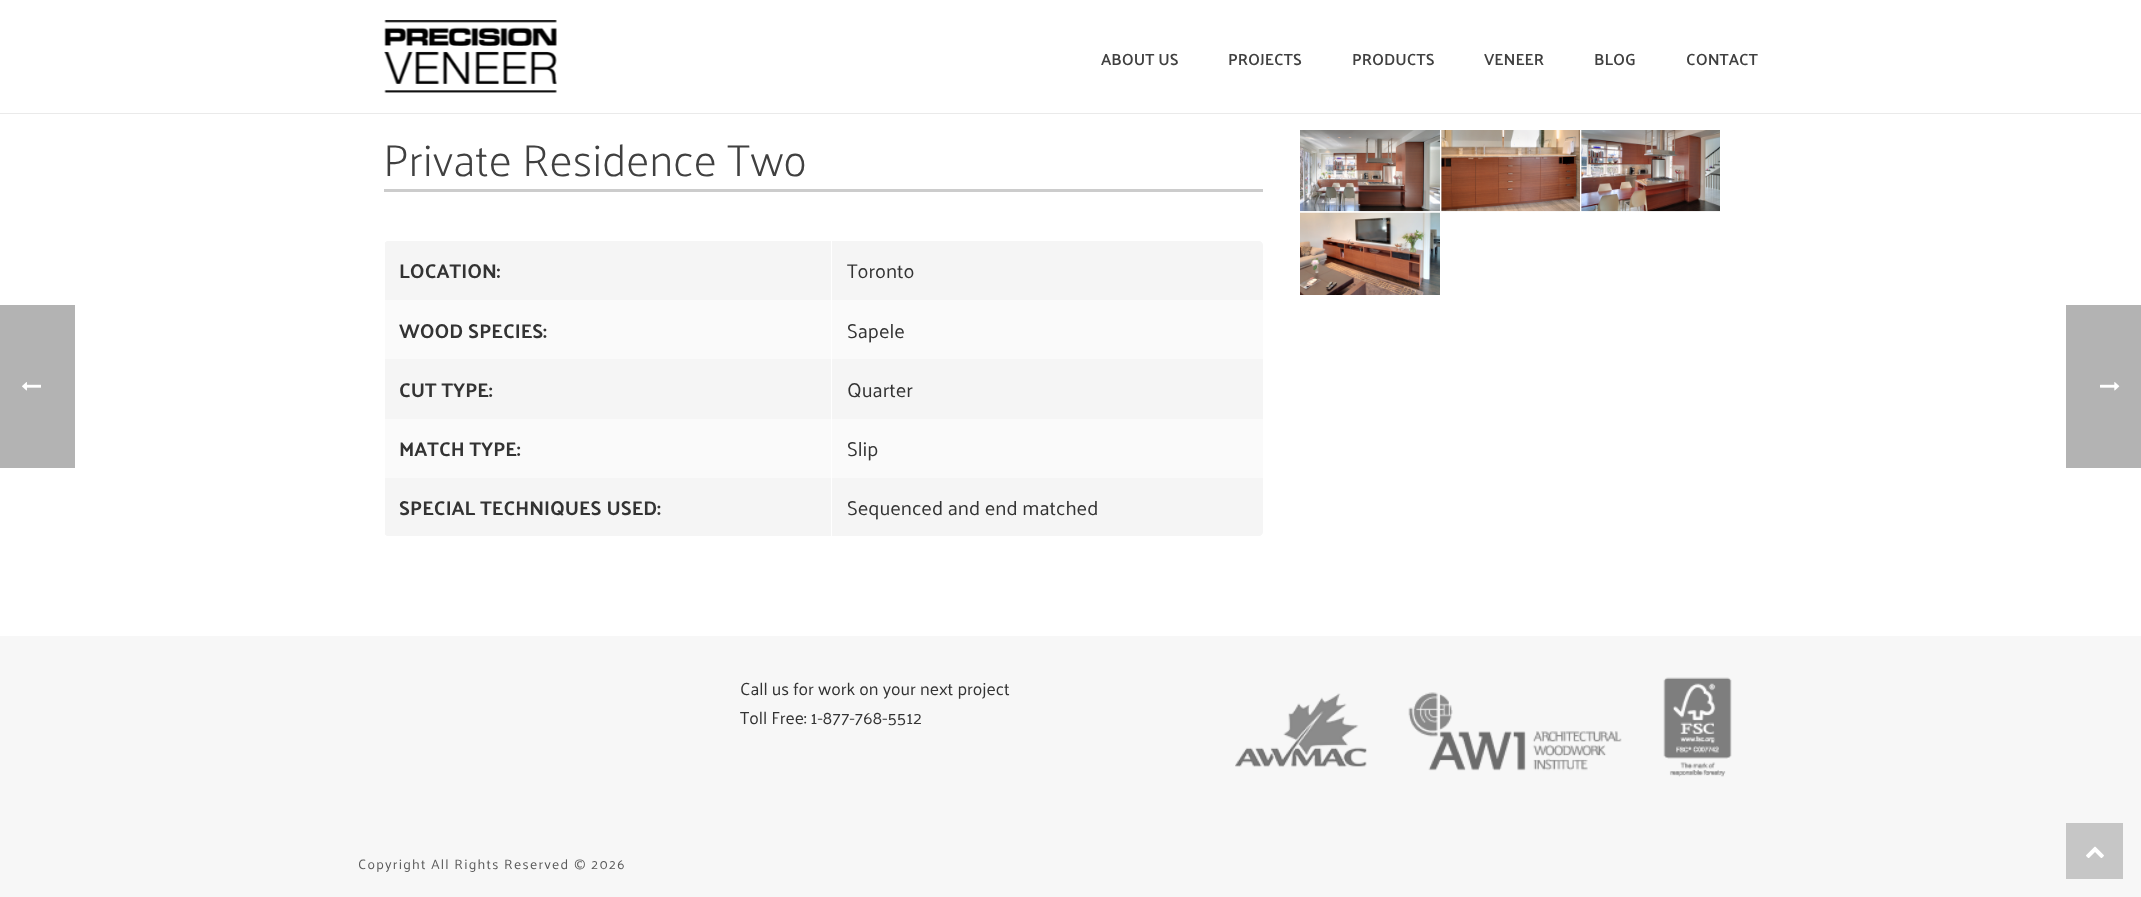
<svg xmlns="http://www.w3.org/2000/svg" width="2141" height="897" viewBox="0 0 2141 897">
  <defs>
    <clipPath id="clip1"><rect x="384" y="241" width="879" height="295" rx="4"/></clipPath>
  </defs>
  <rect width="100%" height="100%" fill="#ffffff"/>
  <rect x="0" y="305" width="75" height="163" fill="#b3b3b3"/>
  <image x="22" y="382" width="19" height="9" href="img1.png"/>
  <rect x="0" y="113" width="2141" height="1" fill="#eaeaea"/>
  <image x="384" y="20" width="173" height="73" href="img2.png"/>
  <text x="1101" y="65" font-family="Palanquin" font-size="16.25" font-weight="600" fill="#404040">ABOUT US</text>
  <text x="1228" y="65" font-family="Palanquin" font-size="16.25" font-weight="600" fill="#404040">PROJECTS</text>
  <text x="1352" y="65" font-family="Palanquin" font-size="16.25" font-weight="600" fill="#404040">PRODUCTS</text>
  <text x="1484" y="65" font-family="Palanquin" font-size="16.25" font-weight="600" fill="#404040">VENEER</text>
  <text x="1594" y="65" font-family="Palanquin" font-size="16.25" font-weight="600" fill="#404040">BLOG</text>
  <text x="1686" y="65" font-family="Palanquin" font-size="16.25" font-weight="600" fill="#404040">CONTACT</text>
  <text x="383" y="176" font-family="Palanquin" font-size="45" font-weight="200" fill="#404040">Private Residence Two</text>
  <rect x="384" y="189" width="879" height="3" fill="#cccccc"/>
  <path d="M388 241H1259C1261 241 1263 243 1263 245V300H384V245C384 243 386 241 388 241Z" fill="#f5f5f5"/>
  <g clip-path="url(#clip1)">
    <rect x="384" y="241" width="1" height="60" fill="#ffffff"/>
  </g>
  <text x="399" y="278" font-family="Palanquin" font-size="20" font-weight="bold" fill="#333333">LOCATION:</text>
  <text x="847" y="278" font-family="Palanquin" font-size="20" fill="#333333">Toronto</text>
  <rect x="385" y="300" width="878" height="59" fill="#fafafa"/>
  <text x="399" y="338" font-family="Palanquin" font-size="20" font-weight="bold" fill="#333333">WOOD SPECIES:</text>
  <text x="847" y="338" font-family="Palanquin" font-size="20" fill="#333333">Sapele</text>
  <rect x="385" y="359" width="878" height="60" fill="#f5f5f5"/>
  <text x="399" y="397" font-family="Palanquin" font-size="20" font-weight="bold" fill="#333333">CUT TYPE:</text>
  <text x="847" y="397" font-family="Palanquin" font-size="20" fill="#333333">Quarter</text>
  <rect x="385" y="419" width="878" height="59" fill="#fafafa"/>
  <text x="399" y="456" font-family="Palanquin" font-size="20" font-weight="bold" fill="#333333">MATCH TYPE:</text>
  <text x="847" y="456" font-family="Palanquin" font-size="20" fill="#333333">Slip</text>
  <path d="M384 478H1263V532C1263 534 1261 536 1259 536H388C386 536 384 534 384 532Z" fill="#f5f5f5"/>
  <g clip-path="url(#clip1)">
    <rect x="384" y="476" width="1" height="60" fill="#ffffff"/>
  </g>
  <text x="399" y="515" font-family="Palanquin" font-size="20" font-weight="bold" fill="#333333">SPECIAL TECHNIQUES USED:</text>
  <rect x="831" y="241" width="1" height="295" fill="#ffffff"/>
  <text x="847" y="515" font-family="Palanquin" font-size="20" fill="#333333">Sequenced and end matched</text>
  <image x="1300" y="130" width="140" height="82" href="img3.png"/>
  <rect x="1441" y="130" width="1" height="81" fill="#e0e0e0"/>
  <image x="1441" y="130" width="139" height="82" href="img4.png"/>
  <rect x="1581" y="130" width="1" height="81" fill="#e0e0e0"/>
  <image x="1581" y="130" width="139" height="82" href="img5.png"/>
  <image x="1300" y="212" width="140" height="83" href="img6.png"/>
  <rect x="0" y="636" width="2141" height="261" fill="#f7f7f7"/>
  <text x="740" y="695" font-family="Palanquin" font-size="17.5" fill="#333333">Call us for work on your next project</text>
  <text x="740" y="724" font-family="Palanquin" font-size="17.5" fill="#333333">Toll Free: 1-877-768-5512</text>
  <image x="1235" y="693" width="132" height="74" href="img7.png"/>
  <image x="1408" y="692" width="214" height="79" href="img8.png"/>
  <image x="1663" y="677" width="69" height="100" href="img9.png"/>
  <text x="358" y="869" font-family="Palanquin" font-size="13.75" letter-spacing="1.25" fill="#5a5a5a">Copyright All Rights Reserved © 2026</text>
  <rect x="2066" y="305" width="75" height="163" fill="#b3b3b3"/>
  <image x="2100" y="382" width="20" height="9" href="img10.png"/>
  <rect x="2066" y="823" width="57" height="56" fill="#c6c6c6"/>
  <image x="2086" y="846" width="18" height="12" href="img11.png"/>
</svg>
